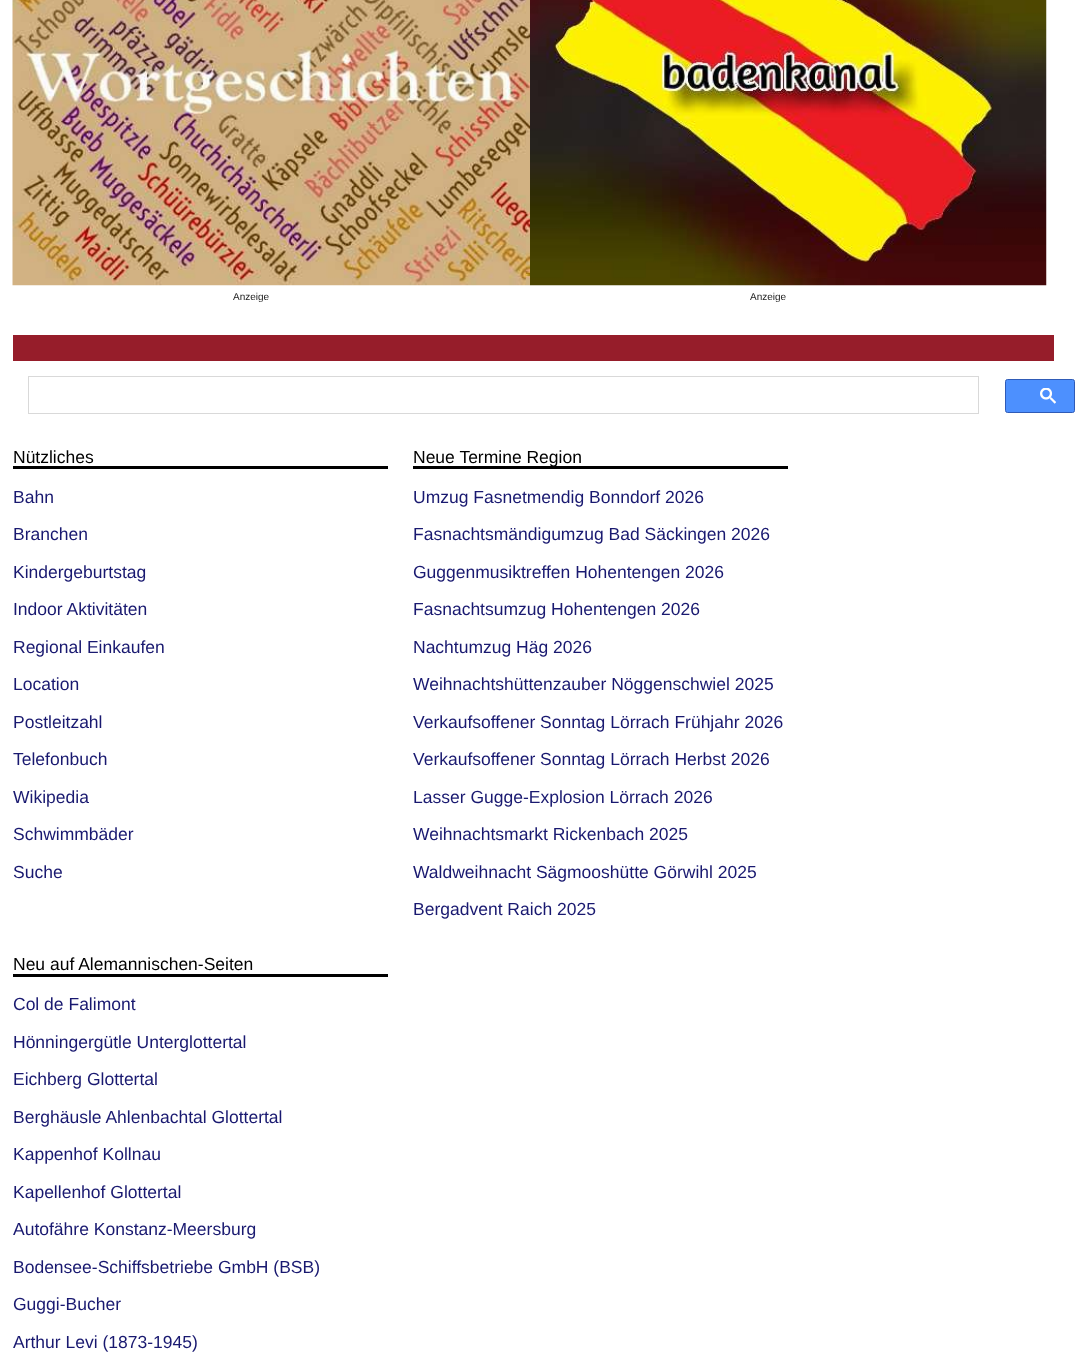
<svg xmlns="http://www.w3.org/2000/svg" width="1080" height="1359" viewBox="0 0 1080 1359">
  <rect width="100%" height="100%" fill="#ffffff"/>
  <image x="12" y="0" width="518" height="286" href="img1.png"/>
  <text x="233" y="300" font-family="Liberation Sans" font-size="10" fill="#232323">Anzeige</text>
  <image x="530" y="0" width="517" height="286" href="img2.png"/>
  <text x="750" y="300" font-family="Liberation Sans" font-size="10" fill="#232323">Anzeige</text>
  <rect x="13" y="335" width="1041" height="26" fill="#961d2a"/>
  <rect x="28.5" y="376.5" width="950" height="37" fill="none" stroke="#d9d9d9"/>
  <rect x="1005.5" y="379.5" width="69" height="33" rx="2" fill="#4d90fe" stroke="#2f5bb7"/>
  <image x="1040" y="388" width="16" height="16" href="img3.png"/>
  <rect x="13" y="466" width="375" height="3" fill="#000000"/>
  <text x="13" y="463" font-family="Liberation Sans" font-size="17.5" fill="#000000">Nützliches</text>
  <text x="13" y="503" font-family="Liberation Sans" font-size="17.5" fill="#191970">Bahn</text>
  <text x="13" y="540" font-family="Liberation Sans" font-size="17.5" fill="#191970">Branchen</text>
  <text x="13" y="578" font-family="Liberation Sans" font-size="17.5" fill="#191970">Kindergeburtstag</text>
  <text x="13" y="615" font-family="Liberation Sans" font-size="17.5" fill="#191970">Indoor Aktivitäten</text>
  <text x="13" y="653" font-family="Liberation Sans" font-size="17.5" fill="#191970">Regional Einkaufen</text>
  <text x="13" y="690" font-family="Liberation Sans" font-size="17.5" fill="#191970">Location</text>
  <text x="13" y="728" font-family="Liberation Sans" font-size="17.5" fill="#191970">Postleitzahl</text>
  <text x="13" y="765" font-family="Liberation Sans" font-size="17.5" fill="#191970">Telefonbuch</text>
  <text x="13" y="803" font-family="Liberation Sans" font-size="17.5" fill="#191970">Wikipedia</text>
  <text x="13" y="840" font-family="Liberation Sans" font-size="17.5" fill="#191970">Schwimmbäder</text>
  <text x="13" y="878" font-family="Liberation Sans" font-size="17.5" fill="#191970">Suche</text>
  <rect x="413" y="466" width="375" height="3" fill="#000000"/>
  <text x="413" y="463" font-family="Liberation Sans" font-size="17.5" fill="#000000">Neue Termine Region</text>
  <text x="413" y="503" font-family="Liberation Sans" font-size="17.5" fill="#191970">Umzug Fasnetmendig Bonndorf 2026</text>
  <text x="413" y="540" font-family="Liberation Sans" font-size="17.5" fill="#191970">Fasnachtsmändigumzug Bad Säckingen 2026</text>
  <text x="413" y="578" font-family="Liberation Sans" font-size="17.5" fill="#191970">Guggenmusiktreffen Hohentengen 2026</text>
  <text x="413" y="615" font-family="Liberation Sans" font-size="17.5" fill="#191970">Fasnachtsumzug Hohentengen 2026</text>
  <text x="413" y="653" font-family="Liberation Sans" font-size="17.5" fill="#191970">Nachtumzug Häg 2026</text>
  <text x="413" y="690" font-family="Liberation Sans" font-size="17.5" fill="#191970">Weihnachtshüttenzauber Nöggenschwiel 2025</text>
  <text x="413" y="728" font-family="Liberation Sans" font-size="17.5" fill="#191970">Verkaufsoffener Sonntag Lörrach Frühjahr 2026</text>
  <text x="413" y="765" font-family="Liberation Sans" font-size="17.5" fill="#191970">Verkaufsoffener Sonntag Lörrach Herbst 2026</text>
  <text x="413" y="803" font-family="Liberation Sans" font-size="17.5" fill="#191970">Lasser Gugge-Explosion Lörrach 2026</text>
  <text x="413" y="840" font-family="Liberation Sans" font-size="17.5" fill="#191970">Weihnachtsmarkt Rickenbach 2025</text>
  <text x="413" y="878" font-family="Liberation Sans" font-size="17.5" fill="#191970">Waldweihnacht Sägmooshütte Görwihl 2025</text>
  <text x="413" y="915" font-family="Liberation Sans" font-size="17.5" fill="#191970">Bergadvent Raich 2025</text>
  <rect x="13" y="974" width="375" height="3" fill="#000000"/>
  <text x="13" y="970" font-family="Liberation Sans" font-size="17.5" fill="#000000">Neu auf Alemannischen-Seiten</text>
  <text x="13" y="1010" font-family="Liberation Sans" font-size="17.5" fill="#191970">Col de Falimont</text>
  <text x="13" y="1048" font-family="Liberation Sans" font-size="17.5" fill="#191970">Hönningergütle Unterglottertal</text>
  <text x="13" y="1085" font-family="Liberation Sans" font-size="17.5" fill="#191970">Eichberg Glottertal</text>
  <text x="13" y="1123" font-family="Liberation Sans" font-size="17.5" fill="#191970">Berghäusle Ahlenbachtal Glottertal</text>
  <text x="13" y="1160" font-family="Liberation Sans" font-size="17.5" fill="#191970">Kappenhof Kollnau</text>
  <text x="13" y="1198" font-family="Liberation Sans" font-size="17.5" fill="#191970">Kapellenhof Glottertal</text>
  <text x="13" y="1235" font-family="Liberation Sans" font-size="17.5" fill="#191970">Autofähre Konstanz-Meersburg</text>
  <text x="13" y="1273" font-family="Liberation Sans" font-size="17.5" fill="#191970">Bodensee-Schiffsbetriebe GmbH (BSB)</text>
  <text x="13" y="1310" font-family="Liberation Sans" font-size="17.5" fill="#191970">Guggi-Bucher</text>
  <text x="13" y="1348" font-family="Liberation Sans" font-size="17.5" fill="#191970">Arthur Levi (1873-1945)</text>
</svg>
